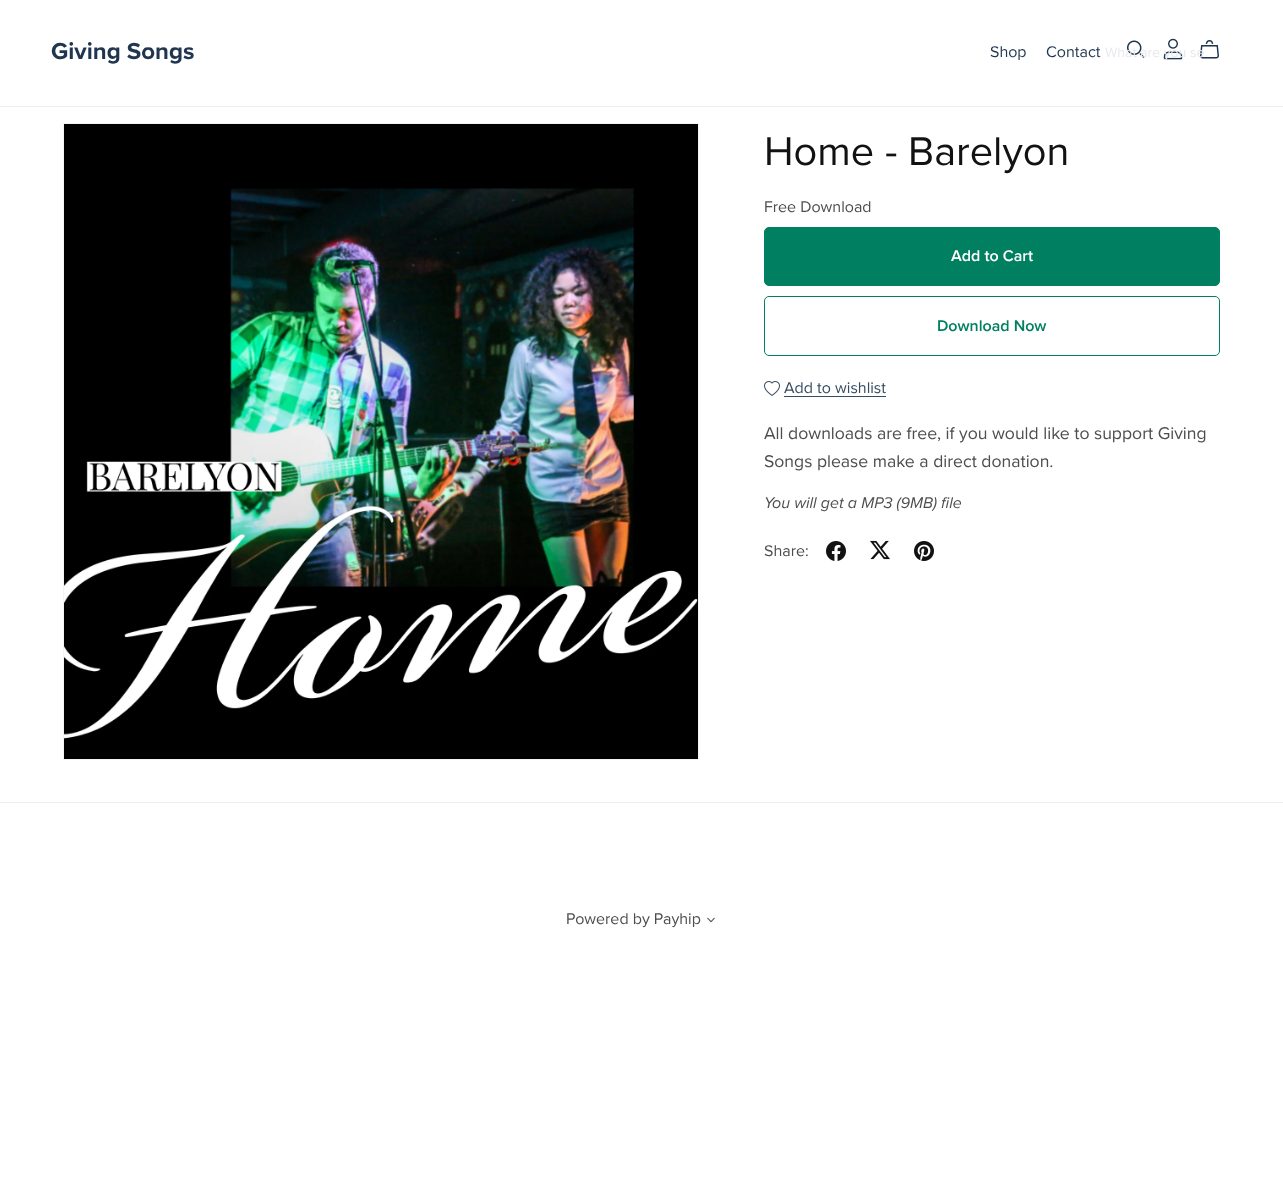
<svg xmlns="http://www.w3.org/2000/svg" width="1283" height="1180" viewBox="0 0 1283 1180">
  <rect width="100%" height="100%" fill="#ffffff"/>
  <rect x="0" y="106" width="1283" height="1" fill="#ededed"/>
  <text x="51" y="59" font-family="Proxima Nova" font-size="24" font-weight="bold" fill="#1f3550">Giving Songs</text>
  <text x="990" y="57" font-family="Proxima Nova" font-size="16" fill="#1f3550">Shop</text>
  <text x="1046" y="57" font-family="Proxima Nova" font-size="16" fill="#1f3550">Contact</text>
  <image x="1163" y="38" width="20" height="22" href="img1.png"/>
  <image x="1200" y="40" width="19" height="19" href="img2.png"/>
  <image x="1127" y="40" width="18" height="18" href="img3.png"/>
  <text x="1105" y="57" font-family="Proxima Nova" font-size="14" fill="#e7e9ec">What are you se</text>
  <rect x="63.5" y="123.5" width="635" height="636" fill="none" stroke="#f3f3f3"/>
  <image x="64" y="124" width="634" height="635" href="img4.png"/>
  <text x="764" y="165" font-family="Proxima Nova" font-size="41.5" fill="#121212">Home - Barelyon</text>
  <text x="764" y="212" font-family="Proxima Nova" font-size="16" fill="#4d4d4d">Free Download</text>
  <rect x="764.5" y="227.5" width="455" height="58" rx="4.5" fill="#008060" stroke="#008060"/>
  <text x="951" y="261" font-family="Proxima Nova" font-size="16" font-weight="600" fill="#ffffff">Add to Cart</text>
  <rect x="764.5" y="296.5" width="455" height="59" rx="4.5" fill="none" stroke="#008060"/>
  <text x="937" y="331" font-family="Proxima Nova" font-size="16" font-weight="600" fill="#008060">Download Now</text>
  <image x="764" y="381" width="16" height="15" href="img5.png"/>
  <text x="784" y="393" font-family="Proxima Nova" font-size="16" fill="#344b60">Add to wishlist</text>
  <rect x="784" y="396" width="102" height="1" fill="#344b60"/>
  <text x="764" y="439" font-family="Proxima Nova" font-size="17.6" fill="#4d4d4d">All downloads are free, if you would like to support Giving</text>
  <text x="764" y="467" font-family="Proxima Nova" font-size="17.6" fill="#4d4d4d">Songs please make a direct donation.</text>
  <text x="764" y="508" font-family="Proxima Nova" font-size="16" font-style="italic" fill="#4d4d4d">You will get a MP3 (9MB) file</text>
  <text x="764" y="556" font-family="Proxima Nova" font-size="16" fill="#4d4d4d">Share:</text>
  <image x="826" y="541" width="20" height="20" href="img6.png"/>
  <image x="870" y="540" width="20" height="20" href="img7.png"/>
  <image x="914" y="541" width="20" height="20" href="img8.png"/>
  <rect x="0" y="802" width="1283" height="1" fill="#ededed"/>
  <text x="566" y="924" font-family="Proxima Nova" font-size="16" fill="#4d4d4d">Powered by Payhip</text>
  <image x="707" y="917" width="8" height="6" href="img9.png"/>
</svg>
